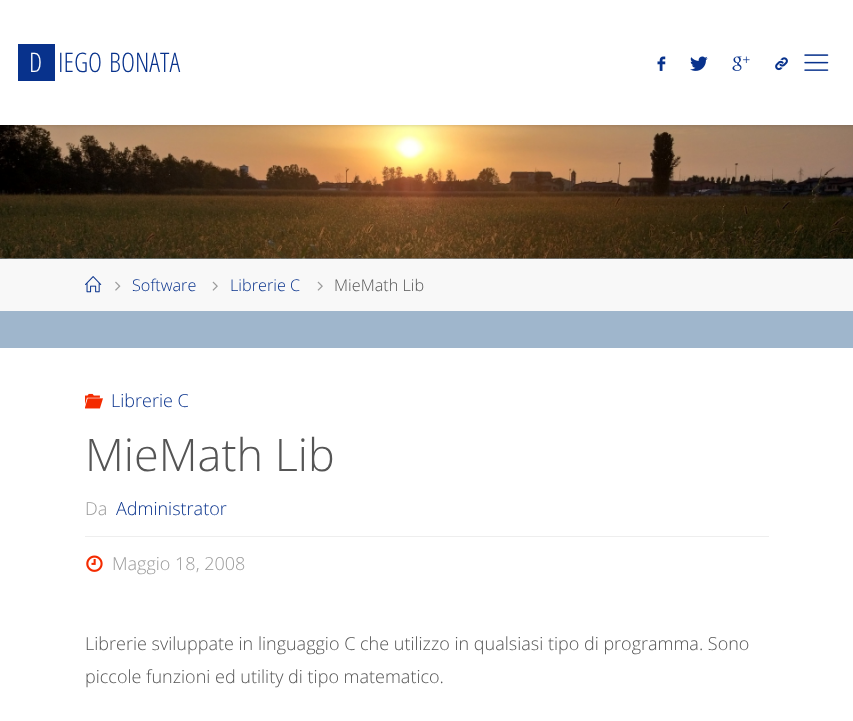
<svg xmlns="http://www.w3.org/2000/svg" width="853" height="721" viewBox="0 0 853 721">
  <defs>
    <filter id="blur1" x="-50%" y="-200%" width="200%" height="500%"><feGaussianBlur stdDeviation="2"/></filter>
  </defs>
  <rect width="100%" height="100%" fill="#9fb6cc"/>
  <image x="0" y="125" width="853" height="134" href="img6.png"/>
  <rect x="0" y="0" width="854" height="125" fill="#000000" fill-opacity="0.2" filter="url(#blur1)"/>
  <rect x="0" y="0" width="853" height="125" fill="#ffffff"/>
  <rect x="18" y="44" width="37" height="37" fill="#08328c"/>
  <text x="29" y="72" font-family="Open Sans Condensed" font-size="27" font-weight="300" fill="#ffffff">D</text>
  <text x="58" y="72" font-family="Open Sans Condensed" font-size="27" font-weight="300" fill="#08328c">IEGO</text>
  <text x="109" y="72" font-family="Open Sans Condensed" font-size="27" font-weight="300" fill="#08328c">BONATA</text>
  <image x="657" y="56" width="9" height="15" href="img1.png"/>
  <image x="690" y="56" width="18" height="15" href="img2.png"/>
  <image x="732" y="56" width="18" height="15" href="img3.png"/>
  <image x="775" y="57" width="13" height="14" href="img4.png"/>
  <image x="804" y="54" width="25" height="17" href="img5.png"/>
  <rect x="0" y="259" width="853" height="52" fill="#f8f8f8"/>
  <image x="85" y="276" width="17" height="17" href="img7.png"/>
  <image x="115" y="281" width="6" height="10" href="img8.png"/>
  <text x="132" y="291" font-family="Open Sans" font-size="16.25" font-weight="300" fill="#08328c">Software</text>
  <image x="212" y="281" width="6" height="10" href="img9.png"/>
  <text x="230" y="291" font-family="Open Sans" font-size="16.25" font-weight="300" fill="#08328c">Librerie C</text>
  <image x="317" y="281" width="6" height="10" href="img9.png"/>
  <text x="334" y="291" font-family="Open Sans" font-size="16.25" font-weight="300" fill="#555555">MieMath Lib</text>
  <rect x="0" y="348" width="853" height="373" fill="#ffffff"/>
  <image x="85" y="393" width="18" height="16" href="img10.png"/>
  <text x="111" y="407" font-family="Open Sans" font-size="18" font-weight="300" fill="#08328c">Librerie C</text>
  <text x="85" y="471" font-family="Open Sans" font-size="45" font-weight="300" fill="#555555">MieMath Lib</text>
  <rect x="85" y="536" width="684" height="1" fill="#eeeeee"/>
  <text x="85" y="515" font-family="Open Sans" font-size="18" font-weight="300" fill="#9a9a9a">Da</text>
  <text x="116" y="515" font-family="Open Sans" font-size="18" font-weight="300" fill="#08328c">Administrator</text>
  <image x="86" y="555" width="17" height="17" href="img11.png"/>
  <text x="112" y="570" font-family="Open Sans" font-size="18" font-weight="300" fill="#9a9a9a">Maggio 18, 2008</text>
  <text x="85" y="650" font-family="Open Sans" font-size="18" font-weight="300" fill="#555555">Librerie sviluppate in linguaggio C che utilizzo in qualsiasi tipo di programma. Sono</text>
  <text x="85" y="683" font-family="Open Sans" font-size="18" font-weight="300" fill="#555555">piccole funzioni ed utility di tipo matematico.</text>
</svg>
